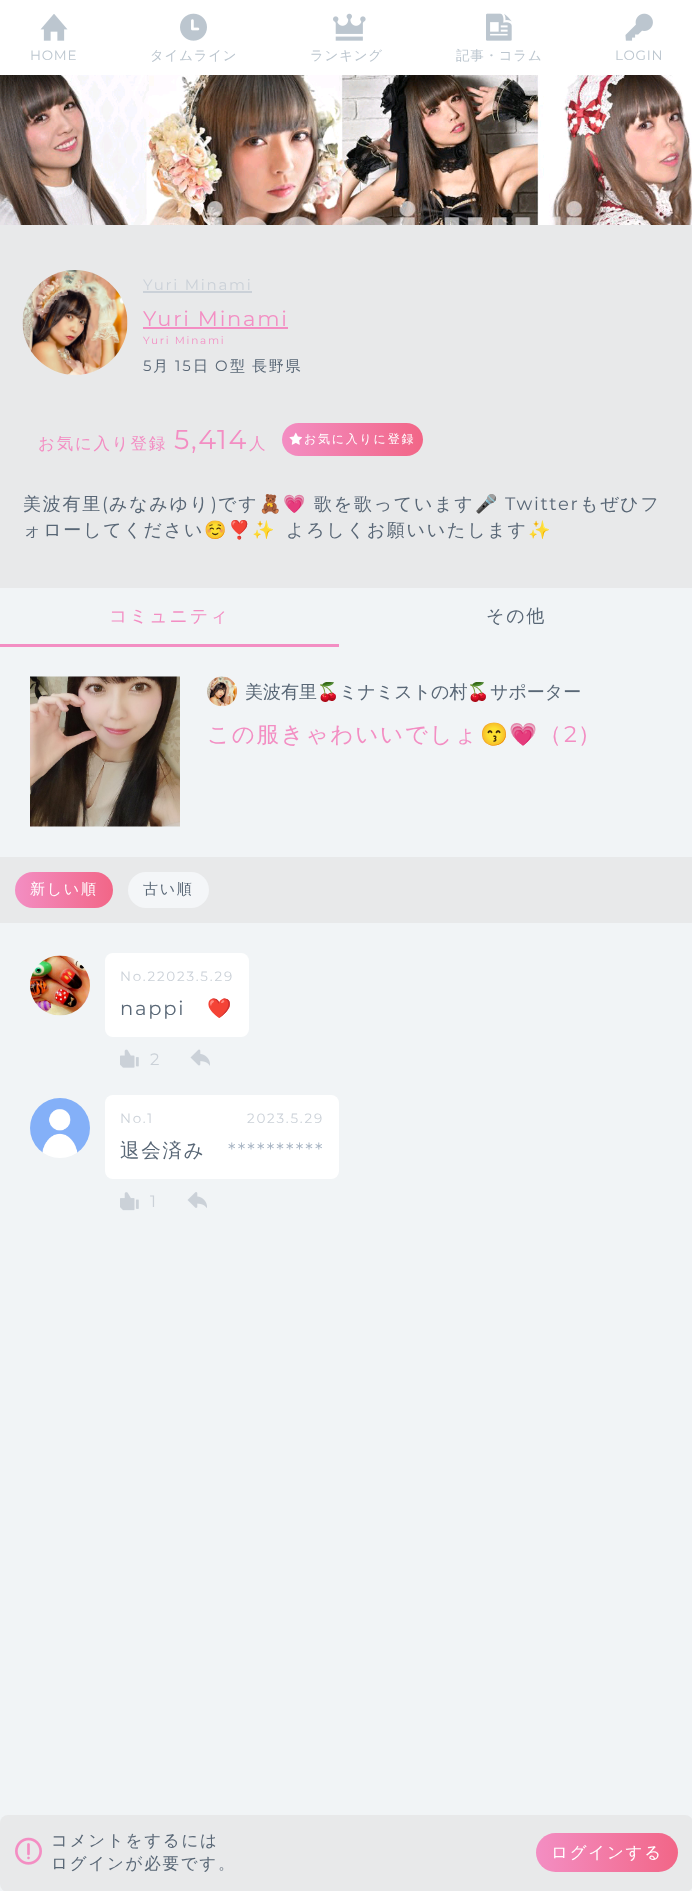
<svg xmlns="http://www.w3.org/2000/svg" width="692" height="1891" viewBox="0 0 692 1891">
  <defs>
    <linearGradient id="g1" gradientUnits="userSpaceOnUse" x1="282" y1="440" x2="423" y2="440"><stop offset="0" stop-color="#f38ec3"/><stop offset="1" stop-color="#f26687"/></linearGradient>
    <linearGradient id="g2" gradientUnits="userSpaceOnUse" x1="15" y1="890" x2="113" y2="890"><stop offset="0" stop-color="#f38ec3"/><stop offset="1" stop-color="#f26687"/></linearGradient>
    <linearGradient id="g3" gradientUnits="userSpaceOnUse" x1="536" y1="1853" x2="678" y2="1853"><stop offset="0" stop-color="#f38ec3"/><stop offset="1" stop-color="#f26687"/></linearGradient>
  </defs>
  <rect width="100%" height="100%" fill="#f1f4f6"/>
  <rect x="0" y="0" width="692" height="75" fill="#ffffff"/>
  <image x="40" y="14" width="28" height="27" href="img1.png"/>
  <text x="30" y="60" font-family="Montserrat" font-size="13.5" letter-spacing="0.75" fill="#bcc6cf">HOME</text>
  <image x="180" y="13" width="27" height="28" href="img2.png"/>
  <text x="150" y="60" font-family="WenQuanYi Zen Hei" font-size="13.5" font-weight="500" letter-spacing="0.75" fill="#bcc6cf">タイムライン</text>
  <image x="333" y="13" width="33" height="28" href="img3.png"/>
  <text x="310" y="60" font-family="WenQuanYi Zen Hei" font-size="13.5" font-weight="500" letter-spacing="0.75" fill="#bcc6cf">ランキング</text>
  <image x="486" y="13" width="26" height="28" href="img4.png"/>
  <text x="456" y="60" font-family="WenQuanYi Zen Hei" font-size="13.5" font-weight="500" letter-spacing="0.75" fill="#bcc6cf">記事・コラム</text>
  <image x="625" y="13" width="28" height="28" href="img5.png"/>
  <text x="615" y="60" font-family="Montserrat" font-size="13.5" letter-spacing="0.75" fill="#bcc6cf">LOGIN</text>
  <rect x="0" y="225" width="692" height="363" fill="#e8e9ea"/>
  <image x="0" y="75" width="692" height="150" href="img6.png"/>
  <image x="22" y="270" width="106" height="105" href="img7.png"/>
  <text x="143" y="290" font-family="Montserrat" font-size="15" letter-spacing="1.75" fill="#cbd1d8">Yuri Minami</text>
  <rect x="143" y="291" width="109" height="2" fill="#cbd1d8"/>
  <text x="143" y="326" font-family="Montserrat" font-size="21" letter-spacing="1.75" fill="#f38ec3">Yuri Minami</text>
  <rect x="143" y="327" width="145" height="2" fill="#f38ec3"/>
  <text x="143" y="344" font-family="Montserrat" font-size="10.5" letter-spacing="1.75" fill="#f38ec3">Yuri Minami</text>
  <text x="143" y="371" font-family="Montserrat" font-size="15" letter-spacing="1.75" fill="#596776">5</text>
  <text x="153" y="371" font-family="WenQuanYi Zen Hei" font-size="15" font-weight="500" letter-spacing="1.75" fill="#596776">月</text>
  <text x="175" y="371" font-family="Montserrat" font-size="15" letter-spacing="1.75" fill="#596776">15</text>
  <text x="193" y="371" font-family="WenQuanYi Zen Hei" font-size="15" font-weight="500" letter-spacing="1.75" fill="#596776">日</text>
  <text x="215" y="371" font-family="Montserrat" font-size="15" letter-spacing="1.75" fill="#596776">O</text>
  <text x="230" y="371" font-family="WenQuanYi Zen Hei" font-size="15" font-weight="500" letter-spacing="1.75" fill="#596776">型</text>
  <text x="252" y="371" font-family="WenQuanYi Zen Hei" font-size="15" font-weight="500" letter-spacing="1.75" fill="#596776">長野県</text>
  <text x="38" y="449" font-family="WenQuanYi Zen Hei" font-size="16.5" font-weight="500" letter-spacing="1.75" fill="#f38ec3">お気に入り登録</text>
  <text x="174" y="449" font-family="Montserrat" font-size="27" letter-spacing="1.75" fill="#f38ec3">5,414</text>
  <text x="249" y="449" font-family="WenQuanYi Zen Hei" font-size="16.5" font-weight="500" letter-spacing="1.75" fill="#f38ec3">人</text>
  <rect x="282" y="423" width="141" height="33" rx="16.5" fill="url(#g1)"/>
  <image x="289" y="432" width="13" height="13" href="img8.png"/>
  <text x="304" y="443" font-family="WenQuanYi Zen Hei" font-size="12" font-weight="500" letter-spacing="1.75" fill="#ffffff">お気に入りに登録</text>
  <text x="23" y="510" font-family="WenQuanYi Zen Hei" font-size="18" font-weight="500" letter-spacing="1.75" fill="#596776">美波有里</text>
  <text x="102" y="510" font-family="Montserrat" font-size="18" letter-spacing="1.75" fill="#596776">(</text>
  <text x="109" y="510" font-family="WenQuanYi Zen Hei" font-size="18" font-weight="500" letter-spacing="1.75" fill="#596776">みなみゆり</text>
  <text x="211" y="510" font-family="Montserrat" font-size="18" letter-spacing="1.75" fill="#596776">)</text>
  <text x="218" y="510" font-family="WenQuanYi Zen Hei" font-size="18" font-weight="500" letter-spacing="1.75" fill="#596776">です</text>
  <text x="259" y="510" font-family="Noto Color Emoji" font-size="18" letter-spacing="1.75" fill="#596776">🧸💗</text>
  <text x="314" y="510" font-family="WenQuanYi Zen Hei" font-size="18" font-weight="500" letter-spacing="1.75" fill="#596776">歌を歌っています</text>
  <text x="475" y="510" font-family="Noto Color Emoji" font-size="18" letter-spacing="1.75" fill="#596776">🎤</text>
  <text x="505" y="510" font-family="Montserrat" font-size="18" letter-spacing="1.75" fill="#596776">Twitter</text>
  <text x="580" y="510" font-family="WenQuanYi Zen Hei" font-size="18" font-weight="500" letter-spacing="1.75" fill="#596776">もぜひフ</text>
  <text x="23" y="536" font-family="WenQuanYi Zen Hei" font-size="18" font-weight="500" letter-spacing="1.75" fill="#596776">ォローしてください</text>
  <text x="204" y="536" font-family="Noto Color Emoji" font-size="18" letter-spacing="1.75" fill="#596776">☺️❣️✨</text>
  <text x="286" y="536" font-family="WenQuanYi Zen Hei" font-size="18" font-weight="500" letter-spacing="1.75" fill="#596776">よろしくお願いいたします</text>
  <text x="528" y="536" font-family="Noto Color Emoji" font-size="18" letter-spacing="1.75" fill="#596776">✨</text>
  <rect x="0" y="644" width="339" height="3" fill="#f38ec3"/>
  <text x="109" y="622" font-family="WenQuanYi Zen Hei" font-size="18" font-weight="500" letter-spacing="1.75" fill="#f38ec3">コミュニティ</text>
  <text x="486" y="622" font-family="WenQuanYi Zen Hei" font-size="18" font-weight="500" letter-spacing="1.75" fill="#596776">その他</text>
  <image x="30" y="676" width="150" height="151" href="img9.png"/>
  <image x="207" y="676" width="30" height="31" href="img10.png"/>
  <text x="245" y="698" font-family="WenQuanYi Zen Hei" font-size="18" font-weight="500" fill="#596776">美波有里</text>
  <text x="317" y="698" font-family="Noto Color Emoji" font-size="18" fill="#596776">🍒</text>
  <text x="339" y="698" font-family="WenQuanYi Zen Hei" font-size="18" font-weight="500" fill="#596776">ミナミストの村</text>
  <text x="467" y="698" font-family="Noto Color Emoji" font-size="18" fill="#596776">🍒</text>
  <text x="490" y="698" font-family="WenQuanYi Zen Hei" font-size="18" font-weight="500" fill="#596776">サポーター</text>
  <text x="207" y="742" font-family="WenQuanYi Zen Hei" font-size="22.5" font-weight="500" letter-spacing="1.75" fill="#f38ec3">この服きゃわいいでしょ</text>
  <text x="480" y="742" font-family="Noto Color Emoji" font-size="22.5" letter-spacing="1.75" fill="#f38ec3">😙💗</text>
  <text x="539" y="742" font-family="WenQuanYi Zen Hei" font-size="22.5" font-weight="500" letter-spacing="1.75" fill="#f38ec3">（</text>
  <text x="564" y="742" font-family="Montserrat" font-size="22.5" letter-spacing="1.75" fill="#f38ec3">2</text>
  <text x="578" y="742" font-family="WenQuanYi Zen Hei" font-size="22.5" font-weight="500" letter-spacing="1.75" fill="#f38ec3">）</text>
  <rect x="0" y="857" width="692" height="66" fill="#e8e9ea"/>
  <rect x="15" y="872" width="98" height="36" rx="18" fill="url(#g2)"/>
  <text x="30" y="894" font-family="WenQuanYi Zen Hei" font-size="15" font-weight="500" letter-spacing="1.75" fill="#ffffff">新しい順</text>
  <rect x="128" y="872" width="81" height="36" rx="18" fill="#f4f6f8"/>
  <text x="143" y="894" font-family="WenQuanYi Zen Hei" font-size="15" font-weight="500" letter-spacing="1.75" fill="#596776">古い順</text>
  <image x="30" y="955" width="60" height="61" href="img11.png"/>
  <rect x="105" y="953" width="144" height="84" rx="8" fill="#ffffff"/>
  <text x="120" y="981" font-family="Montserrat" font-size="13.5" letter-spacing="1.75" fill="#cbd1d8">No.22023.5.29</text>
  <text x="120" y="1015" font-family="Montserrat" font-size="19.5" letter-spacing="1.75" fill="#596776">nappi</text>
  <text x="207" y="1015" font-family="Noto Color Emoji" font-size="19.5" letter-spacing="1.75" fill="#a7b4c3">❤️</text>
  <image x="120" y="1049" width="19" height="19" href="img12.png"/>
  <text x="150" y="1065" font-family="Montserrat" font-size="16.5" letter-spacing="1.75" fill="#cbd1d8">2</text>
  <image x="190" y="1049" width="20" height="17" href="img13.png"/>
  <image x="30" y="1098" width="60" height="60" href="img14.png"/>
  <rect x="105" y="1095" width="234" height="84" rx="8" fill="#ffffff"/>
  <text x="120" y="1123" font-family="Montserrat" font-size="13.5" letter-spacing="1.75" fill="#cbd1d8">No.1</text>
  <text x="247" y="1123" font-family="Montserrat" font-size="13.5" letter-spacing="1.75" fill="#cbd1d8">2023.5.29</text>
  <text x="120" y="1157" font-family="WenQuanYi Zen Hei" font-size="19.5" font-weight="500" letter-spacing="1.75" fill="#596776">退会済み</text>
  <text x="228" y="1157" font-family="Montserrat" font-size="19.5" letter-spacing="1.75" fill="#a7b4c3">**********</text>
  <image x="120" y="1192" width="19" height="19" href="img15.png"/>
  <text x="150" y="1207" font-family="Montserrat" font-size="16.5" letter-spacing="1.75" fill="#cbd1d8">1</text>
  <image x="187" y="1192" width="20" height="16" href="img16.png"/>
  <rect x="0" y="1815" width="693" height="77" rx="8" fill="#e8e9ea"/>
  <image x="15" y="1837" width="27" height="28" href="img17.png"/>
  <text x="51" y="1846" font-family="WenQuanYi Zen Hei" font-size="16.5" font-weight="500" letter-spacing="1.75" fill="#596776">コメントをするには</text>
  <text x="51" y="1869" font-family="WenQuanYi Zen Hei" font-size="16.5" font-weight="500" letter-spacing="1.75" fill="#596776">ログインが必要です。</text>
  <rect x="536" y="1833" width="142" height="39" rx="19.5" fill="url(#g3)"/>
  <text x="551" y="1858" font-family="WenQuanYi Zen Hei" font-size="16.5" font-weight="500" letter-spacing="1.75" fill="#ffffff">ログインする</text>
</svg>
